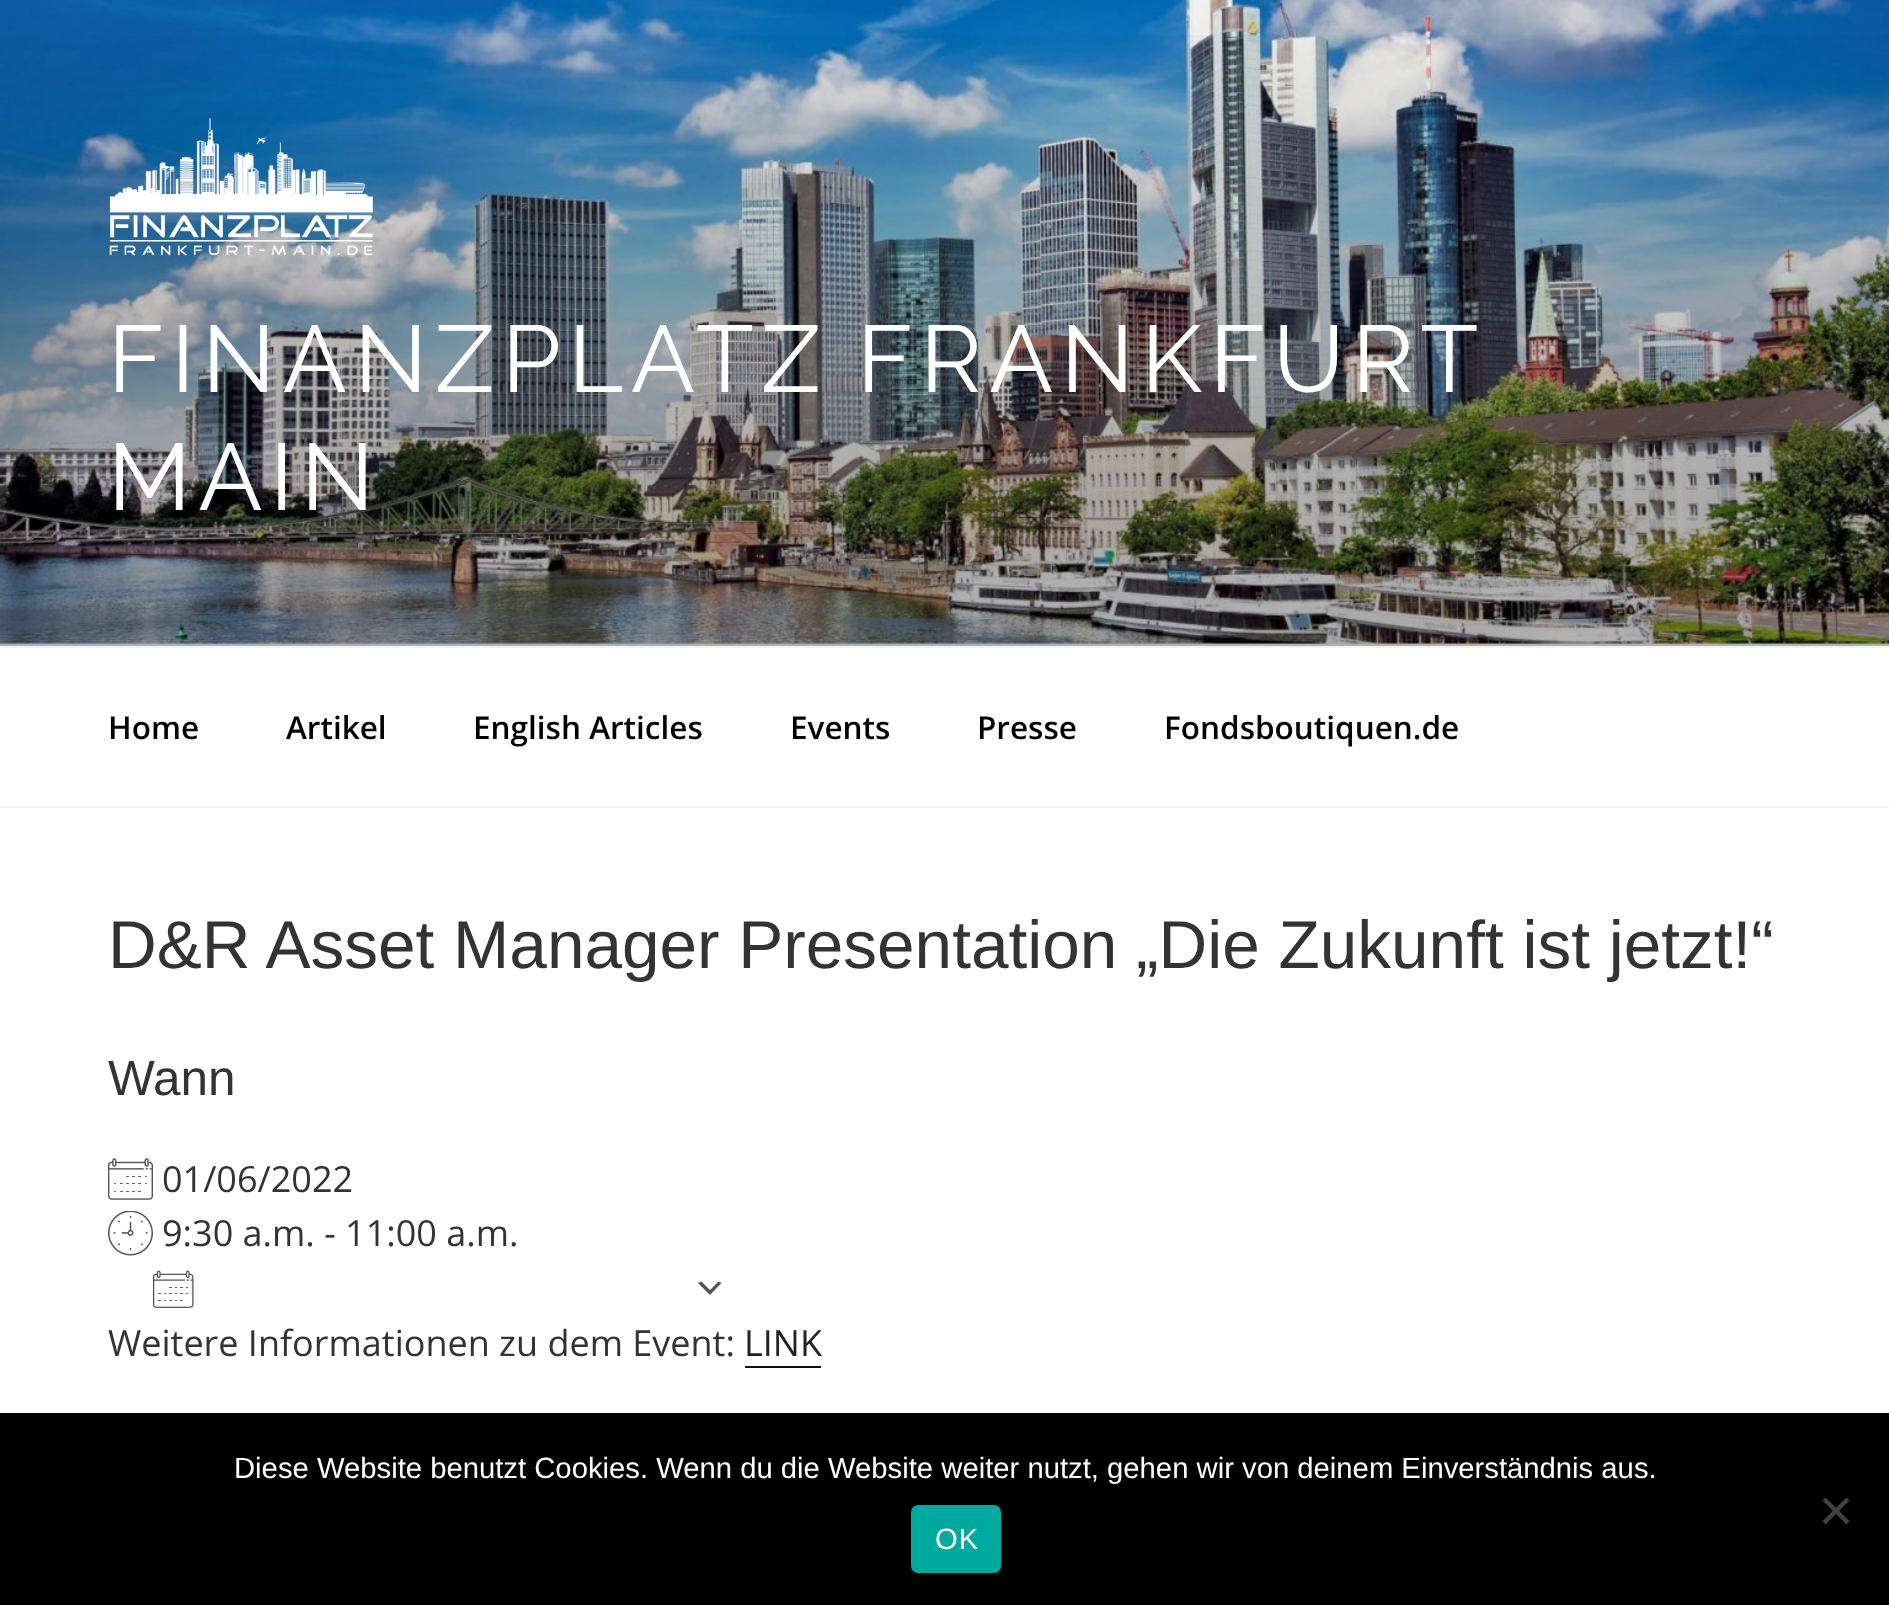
<svg xmlns="http://www.w3.org/2000/svg" width="1889" height="1605" viewBox="0 0 1889 1605">
  <defs>
    <linearGradient id="g1" gradientUnits="userSpaceOnUse" x1="945" y1="0" x2="945" y2="646"><stop offset="0" stop-color="#000000" stop-opacity="0"/><stop offset="0.75" stop-color="#000000" stop-opacity="0.3"/><stop offset="1" stop-color="#000000" stop-opacity="0.3"/></linearGradient>
  </defs>
  <rect width="100%" height="100%" fill="#ffffff"/>
  <rect x="0" y="643" width="1889" height="3" fill="#fafafa"/>
  <image x="0" y="0" width="1889" height="644" href="img1.png"/>
  <rect x="0" y="35" width="1889" height="611" fill="url(#g1)"/>
  <image x="109" y="118" width="264" height="138" href="img2.png"/>
  <text x="108" y="392" word-spacing="-3" font-family="Raleway" font-size="94.5" letter-spacing="7.6" fill="#ffffff">FINANZPLATZ FRANKFURT</text>
  <text x="108" y="510" font-family="Raleway" font-size="94.5" letter-spacing="7.6" fill="#ffffff">MAIN</text>
  <rect x="0" y="646" width="1889" height="2" fill="#f3f3f3"/>
  <rect x="0" y="806" width="1889" height="2" fill="#f3f3f3"/>
  <text x="108" y="739" font-family="Open Sans" font-size="31.5" font-weight="600" fill="#000000">Home</text>
  <text x="286" y="739" font-family="Open Sans" font-size="31.5" font-weight="600" fill="#000000">Artikel</text>
  <text x="473" y="739" font-family="Open Sans" font-size="31.5" font-weight="600" fill="#000000">English Articles</text>
  <text x="790" y="739" font-family="Open Sans" font-size="31.5" font-weight="600" fill="#000000">Events</text>
  <text x="977" y="739" font-family="Open Sans" font-size="31.5" font-weight="600" fill="#000000">Presse</text>
  <text x="1164" y="739" font-family="Open Sans" font-size="31.5" font-weight="600" fill="#000000">Fondsboutiquen.de</text>
  <text x="108" y="968" font-family="Liberation Sans" font-size="67.5" fill="#333333">D&amp;R Asset Manager Presentation „Die Zukunft ist jetzt!“</text>
  <text x="108" y="1095" font-family="Liberation Sans" font-size="49.5" fill="#333333">Wann</text>
  <image x="108" y="1158" width="45" height="42" href="img3.png"/>
  <text x="162" y="1192" font-family="Open Sans" font-size="36" fill="#333333">01/06/2022</text>
  <image x="108" y="1211" width="45" height="45" href="img4.png"/>
  <text x="162" y="1246" font-family="Open Sans" font-size="36" fill="#333333">9:30 a.m. - 11:00 a.m.</text>
  <path d="M701.5 1281.5L710 1290L718.5 1281.5L721.5 1283L710 1295L698 1283Z" fill="#555555"/>
  <image x="153" y="1270" width="41" height="38" href="img5.png"/>
  <text x="108" y="1356" font-family="Open Sans" font-size="36" fill="#333333">Weitere Informationen zu dem Event:</text>
  <text x="744" y="1356" font-family="Open Sans" font-size="36" fill="#222222">LINK</text>
  <rect x="745" y="1366" width="76" height="2" fill="#0f0f0f"/>
  <rect x="0" y="1413" width="1889" height="192" fill="#000000"/>
  <text x="234" y="1478" font-family="Liberation Sans" font-size="29.25" fill="#ffffff">Diese Website benutzt Cookies. Wenn du die Website weiter nutzt, gehen wir von deinem Einverständnis aus.</text>
  <path d="M1846.5 1497.5L1849.5 1500.5L1825.5 1524.5L1822.5 1521Z" fill="#404040"/>
  <path d="M1822.5 1500.5L1825.5 1497.5L1849.5 1521L1846.5 1524.5Z" fill="#404040"/>
  <rect x="911" y="1505" width="90" height="68" rx="7" fill="#00a99d"/>
  <text x="935" y="1549" font-family="Liberation Sans" font-size="29.25" letter-spacing="1" fill="#ffffff">OK</text>
</svg>
